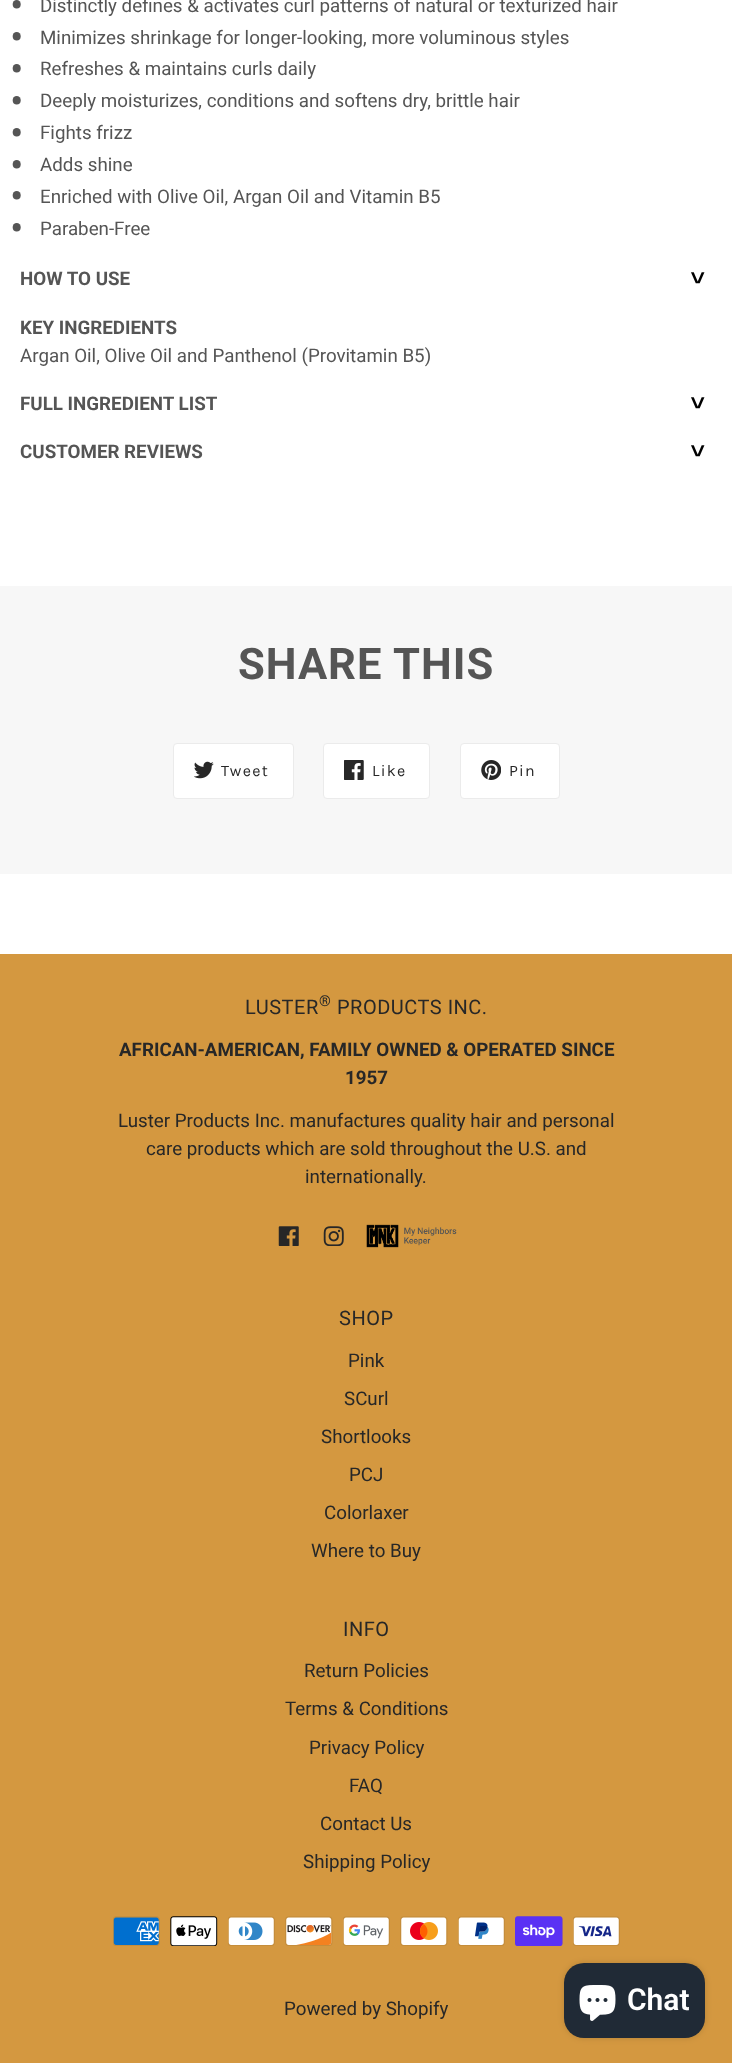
<svg xmlns="http://www.w3.org/2000/svg" width="732" height="2063" viewBox="0 0 732 2063">
  <defs>
    <filter id="blur1" x="-50%" y="-200%" width="200%" height="500%"><feGaussianBlur stdDeviation="3"/></filter>
  </defs>
  <rect width="100%" height="100%" fill="#ffffff"/>
  <text x="10" y="19" font-family="Roboto" font-size="40" fill="#555555">•</text>
  <text x="40" y="12" font-family="Roboto" font-size="18.75" fill="#555555">Distinctly defines &amp; activates curl patterns of natural or texturized hair</text>
  <text x="10" y="51" font-family="Roboto" font-size="40" fill="#555555">•</text>
  <text x="40" y="44" font-family="Roboto" font-size="18.75" fill="#555555">Minimizes shrinkage for longer-looking, more voluminous styles</text>
  <text x="10" y="83" font-family="Roboto" font-size="40" fill="#555555">•</text>
  <text x="40" y="75" font-family="Roboto" font-size="18.75" fill="#555555">Refreshes &amp; maintains curls daily</text>
  <text x="10" y="115" font-family="Roboto" font-size="40" fill="#555555">•</text>
  <text x="40" y="107" font-family="Roboto" font-size="18.75" fill="#555555">Deeply moisturizes, conditions and softens dry, brittle hair</text>
  <text x="10" y="147" font-family="Roboto" font-size="40" fill="#555555">•</text>
  <text x="40" y="139" font-family="Roboto" font-size="18.75" fill="#555555">Fights frizz</text>
  <text x="10" y="179" font-family="Roboto" font-size="40" fill="#555555">•</text>
  <text x="40" y="171" font-family="Roboto" font-size="18.75" fill="#555555">Adds shine</text>
  <text x="10" y="210" font-family="Roboto" font-size="40" fill="#555555">•</text>
  <text x="40" y="203" font-family="Roboto" font-size="18.75" fill="#555555">Enriched with Olive Oil, Argan Oil and Vitamin B5</text>
  <text x="10" y="242" font-family="Roboto" font-size="40" fill="#555555">•</text>
  <text x="40" y="235" font-family="Roboto" font-size="18.75" fill="#555555">Paraben-Free</text>
  <text x="20" y="285" font-family="Roboto" font-size="18.75" font-weight="bold" fill="#555555">HOW TO USE</text>
  <text x="705" y="266" transform="rotate(180 705 266)" font-family="Liberation Sans" font-size="25" font-weight="bold" fill="#000000">^</text>
  <text x="20" y="334" font-family="Roboto" font-size="18.75" font-weight="bold" fill="#555555">KEY INGREDIENTS</text>
  <text x="20" y="362" font-family="Roboto" font-size="18.75" fill="#555555">Argan Oil, Olive Oil and Panthenol (Provitamin B5)</text>
  <text x="20" y="410" font-family="Roboto" font-size="18.75" font-weight="bold" fill="#555555">FULL INGREDIENT LIST</text>
  <text x="705" y="391" transform="rotate(180 705 391)" font-family="Liberation Sans" font-size="25" font-weight="bold" fill="#000000">^</text>
  <text x="20" y="458" font-family="Roboto" font-size="18.75" font-weight="bold" fill="#555555">CUSTOMER REVIEWS</text>
  <text x="705" y="439" transform="rotate(180 705 439)" font-family="Liberation Sans" font-size="25" font-weight="bold" fill="#000000">^</text>
  <rect x="0" y="586" width="732" height="288" fill="#f7f7f7"/>
  <text x="238" y="679" font-family="Roboto" font-size="43.5" font-weight="bold" letter-spacing="1" fill="#555555">SHARE THIS</text>
  <rect x="173.5" y="743.5" width="120" height="55" rx="3.5" fill="#ffffff" stroke="#ebebeb"/>
  <image x="194" y="761" width="20" height="18" href="img1.png"/>
  <text x="221" y="776" font-family="Karla" font-size="16" letter-spacing="1.25" fill="#272727">Tweet</text>
  <rect x="323.5" y="743.5" width="106" height="55" rx="3.5" fill="#ffffff" stroke="#ebebeb"/>
  <image x="344" y="760" width="20" height="20" href="img2.png"/>
  <text x="372" y="776" font-family="Karla" font-size="16" letter-spacing="1.25" fill="#272727">Like</text>
  <rect x="460.5" y="743.5" width="99" height="55" rx="3.5" fill="#ffffff" stroke="#ebebeb"/>
  <image x="481" y="760" width="20" height="20" href="img3.png"/>
  <text x="509" y="776" font-family="Karla" font-size="16" letter-spacing="1.25" fill="#272727">Pin</text>
  <rect x="0" y="954" width="732" height="1109" fill="#d49840"/>
  <text x="245" y="1014" font-family="Roboto" font-size="20" letter-spacing="0.5" fill="#272727">LUSTER</text>
  <text x="319" y="1006" font-family="Roboto" font-size="15" letter-spacing="0.5" fill="#272727">®</text>
  <text x="337" y="1014" font-family="Roboto" font-size="20" letter-spacing="0.5" fill="#272727">PRODUCTS INC.</text>
  <text x="119" y="1056" font-family="Roboto" font-size="18.75" font-weight="bold" fill="#272727">AFRICAN-AMERICAN, FAMILY OWNED &amp; OPERATED SINCE</text>
  <text x="345" y="1084" font-family="Roboto" font-size="18.75" font-weight="bold" fill="#272727">1957</text>
  <text x="118" y="1127" font-family="Roboto" font-size="18.75" fill="#272727">Luster Products Inc. manufactures quality hair and personal</text>
  <text x="146" y="1155" font-family="Roboto" font-size="18.75" fill="#272727">care products which are sold throughout the U.S. and</text>
  <text x="305" y="1183" font-family="Roboto" font-size="18.75" fill="#272727">internationally.</text>
  <image x="278" y="1226" width="21" height="20" href="img4.png"/>
  <image x="323" y="1226" width="21" height="20" href="img5.png"/>
  <image x="366" y="1224" width="91" height="24" href="img6.png"/>
  <text x="339" y="1325" font-family="Roboto" font-size="20" letter-spacing="0.5" fill="#272727">SHOP</text>
  <text x="348" y="1367" font-family="Roboto" font-size="18.75" fill="#272727">Pink</text>
  <text x="344" y="1405" font-family="Roboto" font-size="18.75" fill="#272727">SCurl</text>
  <text x="321" y="1443" font-family="Roboto" font-size="18.75" fill="#272727">Shortlooks</text>
  <text x="349" y="1481" font-family="Roboto" font-size="18.75" fill="#272727">PCJ</text>
  <text x="324" y="1519" font-family="Roboto" font-size="18.75" fill="#272727">Colorlaxer</text>
  <text x="311" y="1557" font-family="Roboto" font-size="18.75" fill="#272727">Where to Buy</text>
  <text x="343" y="1636" font-family="Roboto" font-size="20" letter-spacing="0.5" fill="#272727">INFO</text>
  <text x="304" y="1677" font-family="Roboto" font-size="18.75" fill="#272727">Return Policies</text>
  <text x="285" y="1715" font-family="Roboto" font-size="18.75" fill="#272727">Terms &amp; Conditions</text>
  <text x="309" y="1754" font-family="Roboto" font-size="18.75" fill="#272727">Privacy Policy</text>
  <text x="349" y="1792" font-family="Roboto" font-size="18.75" fill="#272727">FAQ</text>
  <text x="320" y="1830" font-family="Roboto" font-size="18.75" fill="#272727">Contact Us</text>
  <text x="303" y="1868" font-family="Roboto" font-size="18.75" fill="#272727">Shipping Policy</text>
  <image x="113" y="1916" width="47" height="30" href="img7.png"/>
  <image x="170" y="1916" width="48" height="30" href="img8.png"/>
  <image x="228" y="1916" width="47" height="30" href="img9.png"/>
  <image x="285" y="1916" width="48" height="30" href="img10.png"/>
  <image x="343" y="1916" width="47" height="30" href="img11.png"/>
  <image x="400" y="1916" width="48" height="30" href="img12.png"/>
  <image x="458" y="1916" width="47" height="30" href="img13.png"/>
  <image x="515" y="1916" width="48" height="30" href="img14.png"/>
  <image x="573" y="1916" width="47" height="30" href="img15.png"/>
  <text x="284" y="2015" font-family="Roboto" font-size="18.75" fill="#272727">Powered by Shopify</text>
  <rect x="564" y="1963" width="141" height="75" rx="20" fill="#000000" fill-opacity="0.15" filter="url(#blur1)"/>
  <rect x="564" y="1963" width="141" height="75" rx="20" fill="#202a36"/>
  <image x="579" y="1985" width="37" height="36" href="img16.png"/>
  <text x="627" y="2010" font-family="Roboto" font-size="30" font-weight="600" fill="#ffffff">Chat</text>
</svg>
